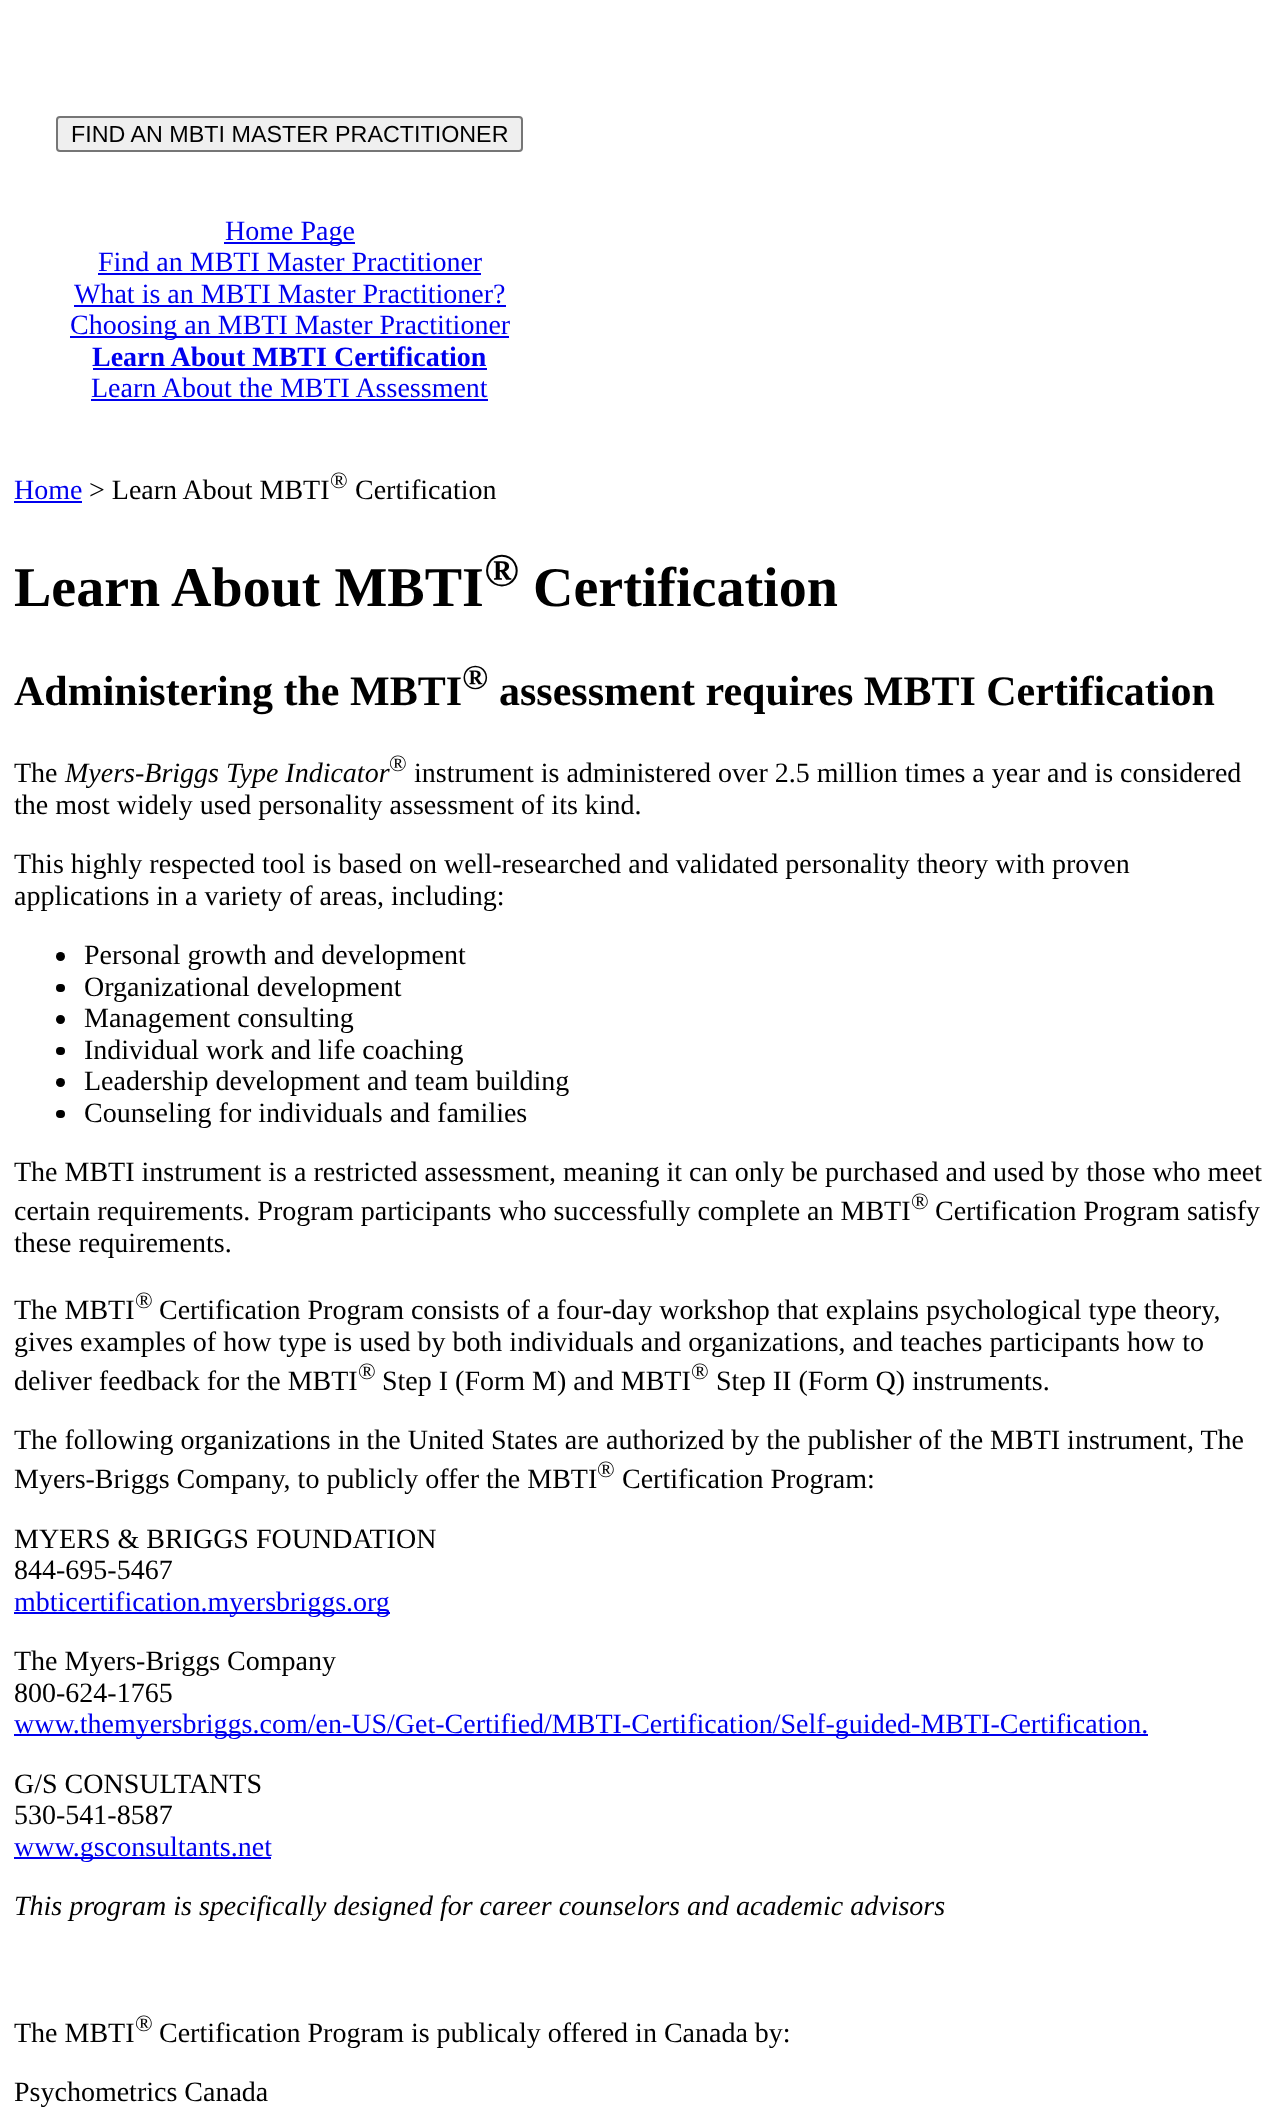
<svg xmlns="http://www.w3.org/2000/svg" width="1284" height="2126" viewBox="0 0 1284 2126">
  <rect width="100%" height="100%" fill="#ffffff"/>
  <rect x="57" y="117" width="465" height="34" rx="3" fill="#efefef" stroke="#767676" stroke-width="2"/>
  <text x="71" y="142" font-family="Liberation Sans" font-size="23.3" fill="#000000">FIND AN MBTI MASTER PRACTITIONER</text>
  <rect x="224" y="242" width="131" height="2" fill="#0000ee"/>
  <text x="225" y="240" font-family="Liberation Serif" font-size="28" fill="#0000ee">Home Page</text>
  <text x="98" y="271" font-family="Liberation Serif" font-size="28" fill="#0000ee">Find an MBTI Master Practitioner</text>
  <rect x="98" y="273" width="383" height="2" fill="#0000ee"/>
  <text x="74" y="303" font-family="Liberation Serif" font-size="28" fill="#0000ee">What is an MBTI Master Practitioner?</text>
  <rect x="74" y="305" width="432" height="2" fill="#0000ee"/>
  <rect x="70" y="336" width="439" height="2" fill="#0000ee"/>
  <text x="70" y="334" font-family="Liberation Serif" font-size="28" fill="#0000ee">Choosing an MBTI Master Practitioner</text>
  <text x="92" y="366" font-family="Liberation Serif" font-size="28" font-weight="bold" fill="#0000ee">Learn About MBTI Certification</text>
  <rect x="93" y="368" width="394" height="2" fill="#0000ee"/>
  <text x="91" y="397" font-family="Liberation Serif" font-size="28" fill="#0000ee">Learn About the MBTI Assessment</text>
  <rect x="91" y="399" width="397" height="2" fill="#0000ee"/>
  <text x="14" y="499" font-family="Liberation Serif" font-size="28" fill="#0000ee">Home</text>
  <rect x="14" y="501" width="68" height="2" fill="#0000ee"/>
  <text x="89" y="499" font-family="Liberation Serif" font-size="28" fill="#000000">&gt; Learn About MBTI</text>
  <text x="330" y="488" font-family="Liberation Serif" font-size="23.3" fill="#000000">®</text>
  <text x="355" y="499" font-family="Liberation Serif" font-size="28" fill="#000000">Certification</text>
  <text x="14" y="606" font-family="Liberation Serif" font-size="56" font-weight="bold" fill="#000000">Learn About MBTI</text>
  <text x="484" y="586" font-family="Liberation Serif" font-size="47" font-weight="bold" fill="#000000">®</text>
  <text x="533" y="606" font-family="Liberation Serif" font-size="56" font-weight="bold" fill="#000000">Certification</text>
  <text x="14" y="705" font-family="Liberation Serif" font-size="42" font-weight="bold" fill="#000000">Administering the MBTI</text>
  <text x="462" y="689" font-family="Liberation Serif" font-size="35" font-weight="bold" fill="#000000">®</text>
  <text x="499" y="705" font-family="Liberation Serif" font-size="42" font-weight="bold" fill="#000000">assessment requires MBTI Certification</text>
  <text x="14" y="782" font-family="Liberation Serif" font-size="28" fill="#000000">The</text>
  <text x="65" y="782" font-family="Liberation Serif" font-size="28" font-style="italic" fill="#000000">Myers-Briggs Type Indicator</text>
  <text x="389" y="771" font-family="Liberation Serif" font-size="23.3" fill="#000000">®</text>
  <text x="414" y="782" font-family="Liberation Serif" font-size="28" fill="#000000">instrument is administered over 2.5 million times a year and is considered</text>
  <text x="14" y="814" font-family="Liberation Serif" font-size="28" fill="#000000">the most widely used personality assessment of its kind.</text>
  <text x="14" y="873" font-family="Liberation Serif" font-size="28" fill="#000000">This highly respected tool is based on well-researched and validated personality theory with proven</text>
  <text x="14" y="905" font-family="Liberation Serif" font-size="28" fill="#000000">applications in a variety of areas, including:</text>
  <circle cx="60.5" cy="956.5" r="4.5" fill="#000000"/>
  <text x="84" y="964" font-family="Liberation Serif" font-size="28" fill="#000000">Personal growth and development</text>
  <rect x="56" y="984" width="9" height="8" rx="4" fill="#000000"/>
  <text x="84" y="996" font-family="Liberation Serif" font-size="28" fill="#000000">Organizational development</text>
  <circle cx="60.5" cy="1019.5" r="4.5" fill="#000000"/>
  <text x="84" y="1027" font-family="Liberation Serif" font-size="28" fill="#000000">Management consulting</text>
  <rect x="56" y="1047" width="9" height="8" rx="4" fill="#000000"/>
  <text x="84" y="1059" font-family="Liberation Serif" font-size="28" fill="#000000">Individual work and life coaching</text>
  <circle cx="60.5" cy="1082.5" r="4.5" fill="#000000"/>
  <text x="84" y="1090" font-family="Liberation Serif" font-size="28" fill="#000000">Leadership development and team building</text>
  <rect x="56" y="1110" width="9" height="8" rx="4" fill="#000000"/>
  <text x="84" y="1122" font-family="Liberation Serif" font-size="28" fill="#000000">Counseling for individuals and families</text>
  <text x="14" y="1181" font-family="Liberation Serif" font-size="28" fill="#000000">The MBTI instrument is a restricted assessment, meaning it can only be purchased and used by those who meet</text>
  <text x="14" y="1220" font-family="Liberation Serif" font-size="28" fill="#000000">certain requirements. Program participants who successfully complete an MBTI</text>
  <text x="911" y="1209" font-family="Liberation Serif" font-size="23.3" fill="#000000">®</text>
  <text x="935" y="1220" font-family="Liberation Serif" font-size="28" fill="#000000">Certification Program satisfy</text>
  <text x="14" y="1252" font-family="Liberation Serif" font-size="28" fill="#000000">these requirements.</text>
  <text x="14" y="1319" font-family="Liberation Serif" font-size="28" fill="#000000">The MBTI</text>
  <text x="135" y="1308" font-family="Liberation Serif" font-size="23.3" fill="#000000">®</text>
  <text x="159" y="1319" font-family="Liberation Serif" font-size="28" fill="#000000">Certification Program consists of a four-day workshop that explains psychological type theory,</text>
  <text x="14" y="1351" font-family="Liberation Serif" font-size="28" fill="#000000">gives examples of how type is used by both individuals and organizations, and teaches participants how to</text>
  <text x="14" y="1390" font-family="Liberation Serif" font-size="28" fill="#000000">deliver feedback for the MBTI</text>
  <text x="358" y="1379" font-family="Liberation Serif" font-size="23.3" fill="#000000">®</text>
  <text x="382" y="1390" font-family="Liberation Serif" font-size="28" fill="#000000">Step I (Form M) and MBTI</text>
  <text x="691" y="1379" font-family="Liberation Serif" font-size="23.3" fill="#000000">®</text>
  <text x="716" y="1390" font-family="Liberation Serif" font-size="28" fill="#000000">Step II (Form Q) instruments.</text>
  <text x="14" y="1449" font-family="Liberation Serif" font-size="28" fill="#000000">The following organizations in the United States are authorized by the publisher of the MBTI instrument, The</text>
  <text x="14" y="1488" font-family="Liberation Serif" font-size="28" fill="#000000">Myers-Briggs Company, to publicly offer the MBTI</text>
  <text x="597" y="1477" font-family="Liberation Serif" font-size="23.3" fill="#000000">®</text>
  <text x="622" y="1488" font-family="Liberation Serif" font-size="28" fill="#000000">Certification Program:</text>
  <text x="14" y="1548" font-family="Liberation Serif" font-size="28" fill="#000000">MYERS &amp; BRIGGS FOUNDATION</text>
  <text x="14" y="1579" font-family="Liberation Serif" font-size="28" fill="#000000">844-695-5467</text>
  <rect x="14" y="1612" width="376" height="2" fill="#0000ee"/>
  <text x="14" y="1611" font-family="Liberation Serif" font-size="28" fill="#0000ee">mbticertification.myersbriggs.org</text>
  <text x="14" y="1670" font-family="Liberation Serif" font-size="28" fill="#000000">The Myers-Briggs Company</text>
  <text x="14" y="1702" font-family="Liberation Serif" font-size="28" fill="#000000">800-624-1765</text>
  <rect x="14" y="1734" width="1134" height="2" fill="#0000ee"/>
  <text x="14" y="1733" font-family="Liberation Serif" font-size="28" fill="#0000ee">www.themyersbriggs.com/en-US/Get-Certified/MBTI-Certification/Self-guided-MBTI-Certification.</text>
  <text x="14" y="1793" font-family="Liberation Serif" font-size="28" fill="#000000">G/S CONSULTANTS</text>
  <text x="14" y="1824" font-family="Liberation Serif" font-size="28" fill="#000000">530-541-8587</text>
  <rect x="14" y="1857" width="257" height="2" fill="#0000ee"/>
  <text x="14" y="1856" font-family="Liberation Serif" font-size="28" fill="#0000ee">www.gsconsultants.net</text>
  <text x="14" y="1915" font-family="Liberation Serif" font-size="28" font-style="italic" fill="#000000">This program is specifically designed for career counselors and academic advisors</text>
  <text x="14" y="2042" font-family="Liberation Serif" font-size="28" fill="#000000">The MBTI</text>
  <text x="135" y="2031" font-family="Liberation Serif" font-size="23.3" fill="#000000">®</text>
  <text x="159" y="2042" font-family="Liberation Serif" font-size="28" fill="#000000">Certification Program is publicaly offered in Canada by:</text>
  <text x="14" y="2101" font-family="Liberation Serif" font-size="28" fill="#000000">Psychometrics Canada</text>
</svg>
